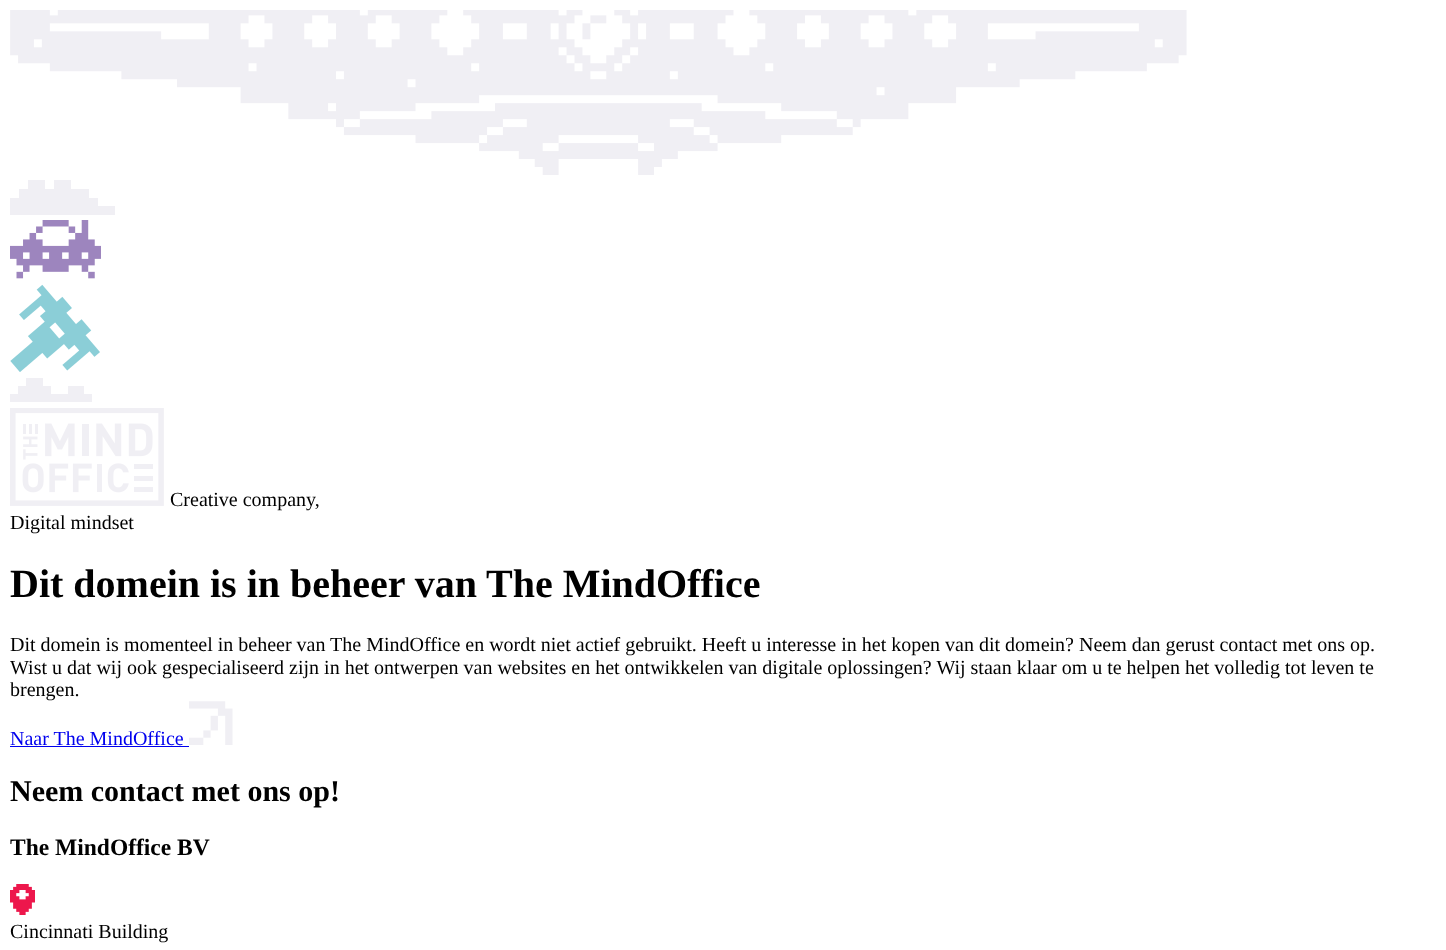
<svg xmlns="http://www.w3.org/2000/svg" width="1446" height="950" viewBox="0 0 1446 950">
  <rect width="100%" height="100%" fill="#ffffff"/>
  <image x="10" y="10" width="1177" height="165" href="img1.png"/>
  <path d="M115 206V215H10V198H19V189H28V180H45V189H54V180H71V189H89V198H98V206Z" fill="#f0eff4"/>
  <image x="10" y="220" width="91" height="59" href="img2.png"/>
  <image x="10" y="284" width="90" height="88" href="img3.png"/>
  <path d="M10 394V402H92V394H84V386H68V394H51V386H43V378H26V386H18V394Z" fill="#f0eff4"/>
  <image x="10" y="408" width="154" height="98" href="img4.png"/>
  <text x="170" y="506" font-family="Liberation Serif" font-size="20" fill="#000000">Creative company,</text>
  <text x="10" y="529" font-family="Liberation Serif" font-size="20" fill="#000000">Digital mindset</text>
  <text x="10" y="597" font-family="Liberation Serif" font-size="40" font-weight="bold" fill="#000000">Dit domein is in beheer van</text>
  <text x="486" y="597" font-family="Liberation Serif" font-size="40" font-weight="bold" fill="#000000">The MindOffice</text>
  <text x="10" y="651" font-family="Liberation Serif" font-size="20" fill="#000000">Dit domein is momenteel in beheer van The MindOffice en wordt niet actief gebruikt. Heeft u interesse in het kopen van dit domein? Neem dan gerust contact met ons op.</text>
  <text x="10" y="674" font-family="Liberation Serif" font-size="20" fill="#000000">Wist u dat wij ook gespecialiseerd zijn in het ontwerpen van websites en het ontwikkelen van digitale oplossingen? Wij staan klaar om u te helpen het volledig tot leven te</text>
  <text x="10" y="696" font-family="Liberation Serif" font-size="20" fill="#000000">brengen.</text>
  <text x="10" y="745" font-family="Liberation Serif" font-size="20" fill="#0000ee">Naar The MindOffice</text>
  <rect x="10" y="746" width="179" height="1" fill="#0000ee"/>
  <image x="189" y="701" width="44" height="44" href="img5.png"/>
  <text x="10" y="801" font-family="Liberation Serif" font-size="30" font-weight="bold" fill="#000000">Neem contact met ons op!</text>
  <text x="10" y="855" font-family="Liberation Serif" font-size="23.5" font-weight="bold" fill="#000000">The MindOffice BV</text>
  <image x="10" y="884" width="25" height="31" href="img6.png"/>
  <text x="10" y="938" font-family="Liberation Serif" font-size="20" fill="#000000">Cincinnati Building</text>
</svg>
